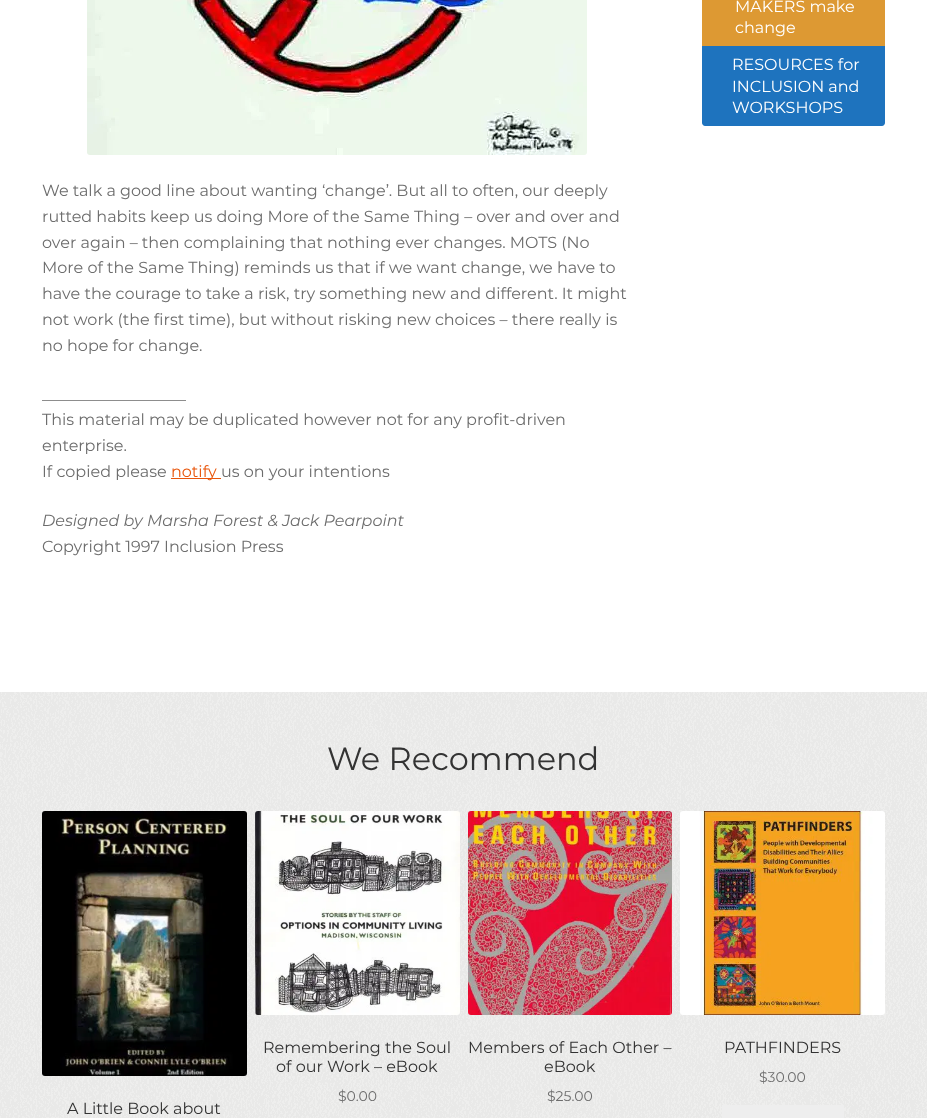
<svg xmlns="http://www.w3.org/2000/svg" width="927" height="1118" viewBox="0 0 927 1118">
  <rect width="100%" height="100%" fill="#ffffff"/>
  <rect x="702" y="0" width="183" height="46" fill="#dd9933"/>
  <text x="735" y="12" font-family="Montserrat" font-size="16" font-weight="100" fill="#ffffff">MAKERS make</text>
  <text x="735" y="33" font-family="Montserrat" font-size="16" font-weight="100" fill="#ffffff">change</text>
  <path d="M702 46H885V123C885 124.5 883.5 126 882 126H705C703.5 126 702 124.5 702 123Z" fill="#1e73be"/>
  <text x="732" y="70" font-family="Montserrat" font-size="16" font-weight="100" fill="#ffffff">RESOURCES for</text>
  <text x="732" y="92" font-family="Montserrat" font-size="16" font-weight="100" fill="#ffffff">INCLUSION and</text>
  <text x="732" y="113" font-family="Montserrat" font-size="16" font-weight="100" fill="#ffffff">WORKSHOPS</text>
  <image x="87" y="0" width="500" height="155" href="img1.png"/>
  <text x="42" y="196" font-family="Montserrat" font-size="16" font-weight="100" fill="#6d6d6d">We talk a good line about wanting ‘change’. But all to often, our deeply</text>
  <text x="42" y="222" font-family="Montserrat" font-size="16" font-weight="100" fill="#6d6d6d">rutted habits keep us doing More of the Same Thing – over and over and</text>
  <text x="42" y="248" font-family="Montserrat" font-size="16" font-weight="100" fill="#6d6d6d">over again – then complaining that nothing ever changes. MOTS (No</text>
  <text x="42" y="273" font-family="Montserrat" font-size="16" font-weight="100" fill="#6d6d6d">More of the Same Thing) reminds us that if we want change, we have to</text>
  <text x="42" y="299" font-family="Montserrat" font-size="16" font-weight="100" fill="#6d6d6d">have the courage to take a risk, try something new and different. It might</text>
  <text x="42" y="325" font-family="Montserrat" font-size="16" font-weight="100" fill="#6d6d6d">not work (the first time), but without risking new choices – there really is</text>
  <text x="42" y="351" font-family="Montserrat" font-size="16" font-weight="100" fill="#6d6d6d">no hope for change.</text>
  <text x="42" y="400" font-family="Montserrat" font-size="16" font-weight="100" fill="#6d6d6d">__________________</text>
  <text x="42" y="425" font-family="Montserrat" font-size="16" font-weight="100" fill="#6d6d6d">This material may be duplicated however not for any profit-driven</text>
  <text x="42" y="451" font-family="Montserrat" font-size="16" font-weight="100" fill="#6d6d6d">enterprise.</text>
  <text x="42" y="477" font-family="Montserrat" font-size="16" font-weight="100" fill="#6d6d6d">If copied please</text>
  <rect x="171" y="478" width="50" height="1" fill="#e9560c"/>
  <text x="171" y="477" font-family="Montserrat" font-size="16" font-weight="100" fill="#e9560c">notify</text>
  <text x="221" y="477" font-family="Montserrat" font-size="16" font-weight="100" fill="#6d6d6d">us on your intentions</text>
  <text x="42" y="526" font-family="Montserrat" font-size="16" font-weight="100" font-style="italic" fill="#6d6d6d">Designed by Marsha Forest &amp; Jack Pearpoint</text>
  <text x="42" y="552" font-family="Montserrat" font-size="16" font-weight="100" fill="#6d6d6d">Copyright 1997 Inclusion Press</text>
  <image x="0" y="692" width="927" height="426" href="img2.png"/>
  <text x="327" y="770" font-family="Montserrat" font-size="32" font-weight="100" fill="#333333">We Recommend</text>
  <image x="255" y="811" width="205" height="204" href="img3.png"/>
  <text x="263" y="1053" font-family="Montserrat" font-size="16" font-weight="100" fill="#333333">Remembering the Soul</text>
  <text x="276" y="1072" font-family="Montserrat" font-size="16" font-weight="100" fill="#333333">of our Work – eBook</text>
  <text x="338" y="1101" font-family="Montserrat" font-size="14" font-weight="100" fill="#6d6d6d">$0.00</text>
  <image x="468" y="811" width="204" height="204" href="img4.png"/>
  <text x="468" y="1053" font-family="Montserrat" font-size="16" font-weight="100" fill="#333333">Members of Each Other –</text>
  <text x="544" y="1072" font-family="Montserrat" font-size="16" font-weight="100" fill="#333333">eBook</text>
  <text x="547" y="1101" font-family="Montserrat" font-size="14" font-weight="100" fill="#6d6d6d">$25.00</text>
  <image x="680" y="811" width="205" height="204" href="img5.png"/>
  <text x="724" y="1053" font-family="Montserrat" font-size="16" font-weight="100" fill="#333333">PATHFINDERS</text>
  <text x="759" y="1082" font-family="Montserrat" font-size="14" font-weight="100" fill="#6d6d6d">$30.00</text>
  <rect x="722" y="1105" width="122" height="13" fill="#eeeeee"/>
  <image x="42" y="811" width="205" height="265" href="img6.png"/>
  <text x="67" y="1114" font-family="Montserrat" font-size="16" font-weight="100" fill="#333333">A Little Book about</text>
</svg>
